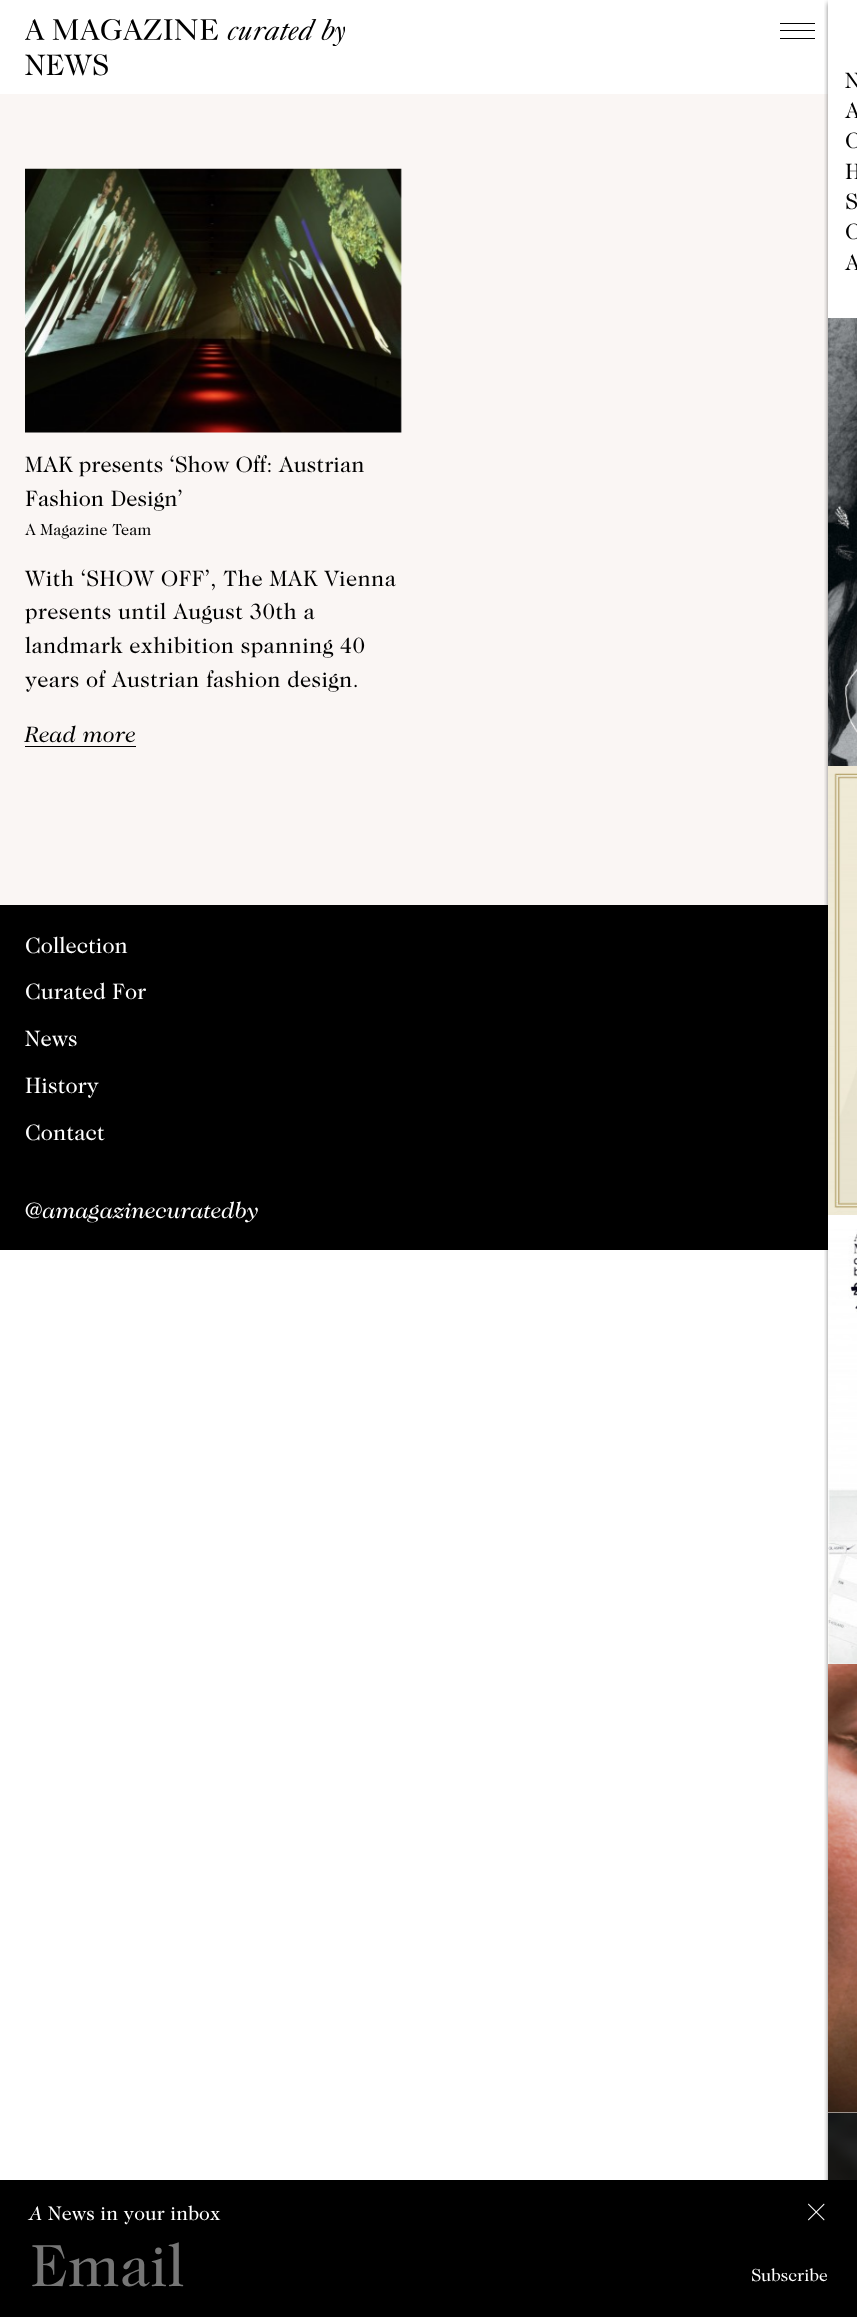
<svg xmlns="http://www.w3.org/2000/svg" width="857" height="2317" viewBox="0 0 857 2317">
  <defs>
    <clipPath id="clip1"><rect x="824" y="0" width="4" height="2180"/></clipPath>
    <filter id="blur1" x="-50%" y="-200%" width="200%" height="500%"><feGaussianBlur stdDeviation="2.5"/></filter>
  </defs>
  <rect width="100%" height="100%" fill="#ffffff"/>
  <image x="25" y="19" width="320" height="27" href="img1.png"/>
  <rect x="780" y="23" width="35" height="1" fill="#000000"/>
  <rect x="780" y="30" width="35" height="1" fill="#000000"/>
  <rect x="780" y="38" width="35" height="1" fill="#000000"/>
  <text x="25" y="75" font-family="'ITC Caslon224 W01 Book'" font-size="30" fill="#000000">NEWS</text>
  <rect x="0" y="94" width="828" height="811" fill="#faf6f4"/>
  <rect x="0" y="905" width="828" height="345" fill="#000000"/>
  <g clip-path="url(#clip1)">
    <rect x="828" y="3" width="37" height="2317" fill="#000000" fill-opacity="0.5" filter="url(#blur1)"/>
  </g>
  <text x="845" y="88" font-family="'ITC Caslon224 W01 Book'" font-size="22.5" fill="#000000">N</text>
  <text x="845" y="118" font-family="'ITC Caslon224 W01 Book'" font-size="22.5" fill="#000000">A</text>
  <text x="845" y="148" font-family="'ITC Caslon224 W01 Book'" font-size="22.5" fill="#000000">C</text>
  <text x="845" y="179" font-family="'ITC Caslon224 W01 Book'" font-size="22.5" fill="#000000">H</text>
  <text x="845" y="209" font-family="'ITC Caslon224 W01 Book'" font-size="22.5" fill="#000000">S</text>
  <text x="845" y="239" font-family="'ITC Caslon224 W01 Book'" font-size="22.5" fill="#000000">C</text>
  <text x="845" y="270" font-family="'ITC Caslon224 W01 Book'" font-size="22.5" fill="#000000">A</text>
  <image x="828" y="318" width="29" height="448" href="img2.png"/>
  <image x="828" y="766" width="29" height="449" href="img3.png"/>
  <image x="828" y="1229" width="29" height="435" href="img4.png"/>
  <image x="828" y="1664" width="29" height="449" href="img5.png"/>
  <image x="828" y="2113" width="29" height="67" href="img6.png"/>
  <image x="25" y="168" width="377" height="265" href="img7.png"/>
  <text x="25" y="472" font-family="'ITC Caslon224 W01 Book'" font-size="22.5" fill="#000000">MAK presents ‘Show Off: Austrian</text>
  <text x="25" y="506" font-family="'ITC Caslon224 W01 Book'" font-size="22.5" fill="#000000">Fashion Design’</text>
  <text x="25" y="535" font-family="'ITC Caslon224 W01 Book'" font-size="16.25" fill="#000000">A Magazine Team</text>
  <text x="25" y="586" font-family="'ITC Caslon224 W01 Book'" font-size="22.5" letter-spacing="0.25" fill="#000000">With ‘SHOW OFF’, The MAK Vienna</text>
  <text x="25" y="619" font-family="'ITC Caslon224 W01 Book'" font-size="22.5" letter-spacing="0.25" fill="#000000">presents until August 30th a</text>
  <text x="25" y="653" font-family="'ITC Caslon224 W01 Book'" font-size="22.5" letter-spacing="0.25" fill="#000000">landmark exhibition spanning 40</text>
  <text x="25" y="687" font-family="'ITC Caslon224 W01 Book'" font-size="22.5" letter-spacing="0.25" fill="#000000">years of Austrian fashion design.</text>
  <text x="25" y="742" font-family="'ITC Caslon224 W01 Book'" font-size="22.5" font-style="italic" letter-spacing="0.25" fill="#000000">Read more</text>
  <rect x="25" y="746" width="111" height="1" fill="#000000"/>
  <text x="25" y="953" font-family="'ITC Caslon224 W01 Book'" font-size="22.5" fill="#ffffff">Collection</text>
  <text x="25" y="999" font-family="'ITC Caslon224 W01 Book'" font-size="22.5" fill="#ffffff">Curated For</text>
  <text x="25" y="1046" font-family="'ITC Caslon224 W01 Book'" font-size="22.5" fill="#ffffff">News</text>
  <text x="25" y="1093" font-family="'ITC Caslon224 W01 Book'" font-size="22.5" fill="#ffffff">History</text>
  <text x="25" y="1140" font-family="'ITC Caslon224 W01 Book'" font-size="22.5" fill="#ffffff">Contact</text>
  <text x="25" y="1218" font-family="'ITC Caslon224 W01 Book'" font-size="22.5" font-style="italic" fill="#ffffff">@amagazinecuratedby</text>
  <rect x="0" y="2180" width="857" height="137" fill="#000000"/>
  <text x="30" y="2220" font-family="'ITC Caslon224 W01 Book'" font-size="20" font-style="italic" fill="#ffffff">A</text>
  <text x="48" y="2220" font-family="'ITC Caslon224 W01 Book'" font-size="20" fill="#ffffff">News in your inbox</text>
  <path d="M808.5 2203.5L824.5 2219.5L824 2220.5L808 2204.5Z" fill="#ffffff"/>
  <path d="M808 2219.5L824 2203.5L824.5 2204.5L808.5 2220.5Z" fill="#ffffff"/>
  <text x="30" y="2286" font-family="'ITC Caslon224 W01 Book'" font-size="60" fill="#757575">Email</text>
  <text x="751" y="2281" font-family="'ITC Caslon224 W01 Book'" font-size="17.5" fill="#ffffff">Subscribe</text>
</svg>
